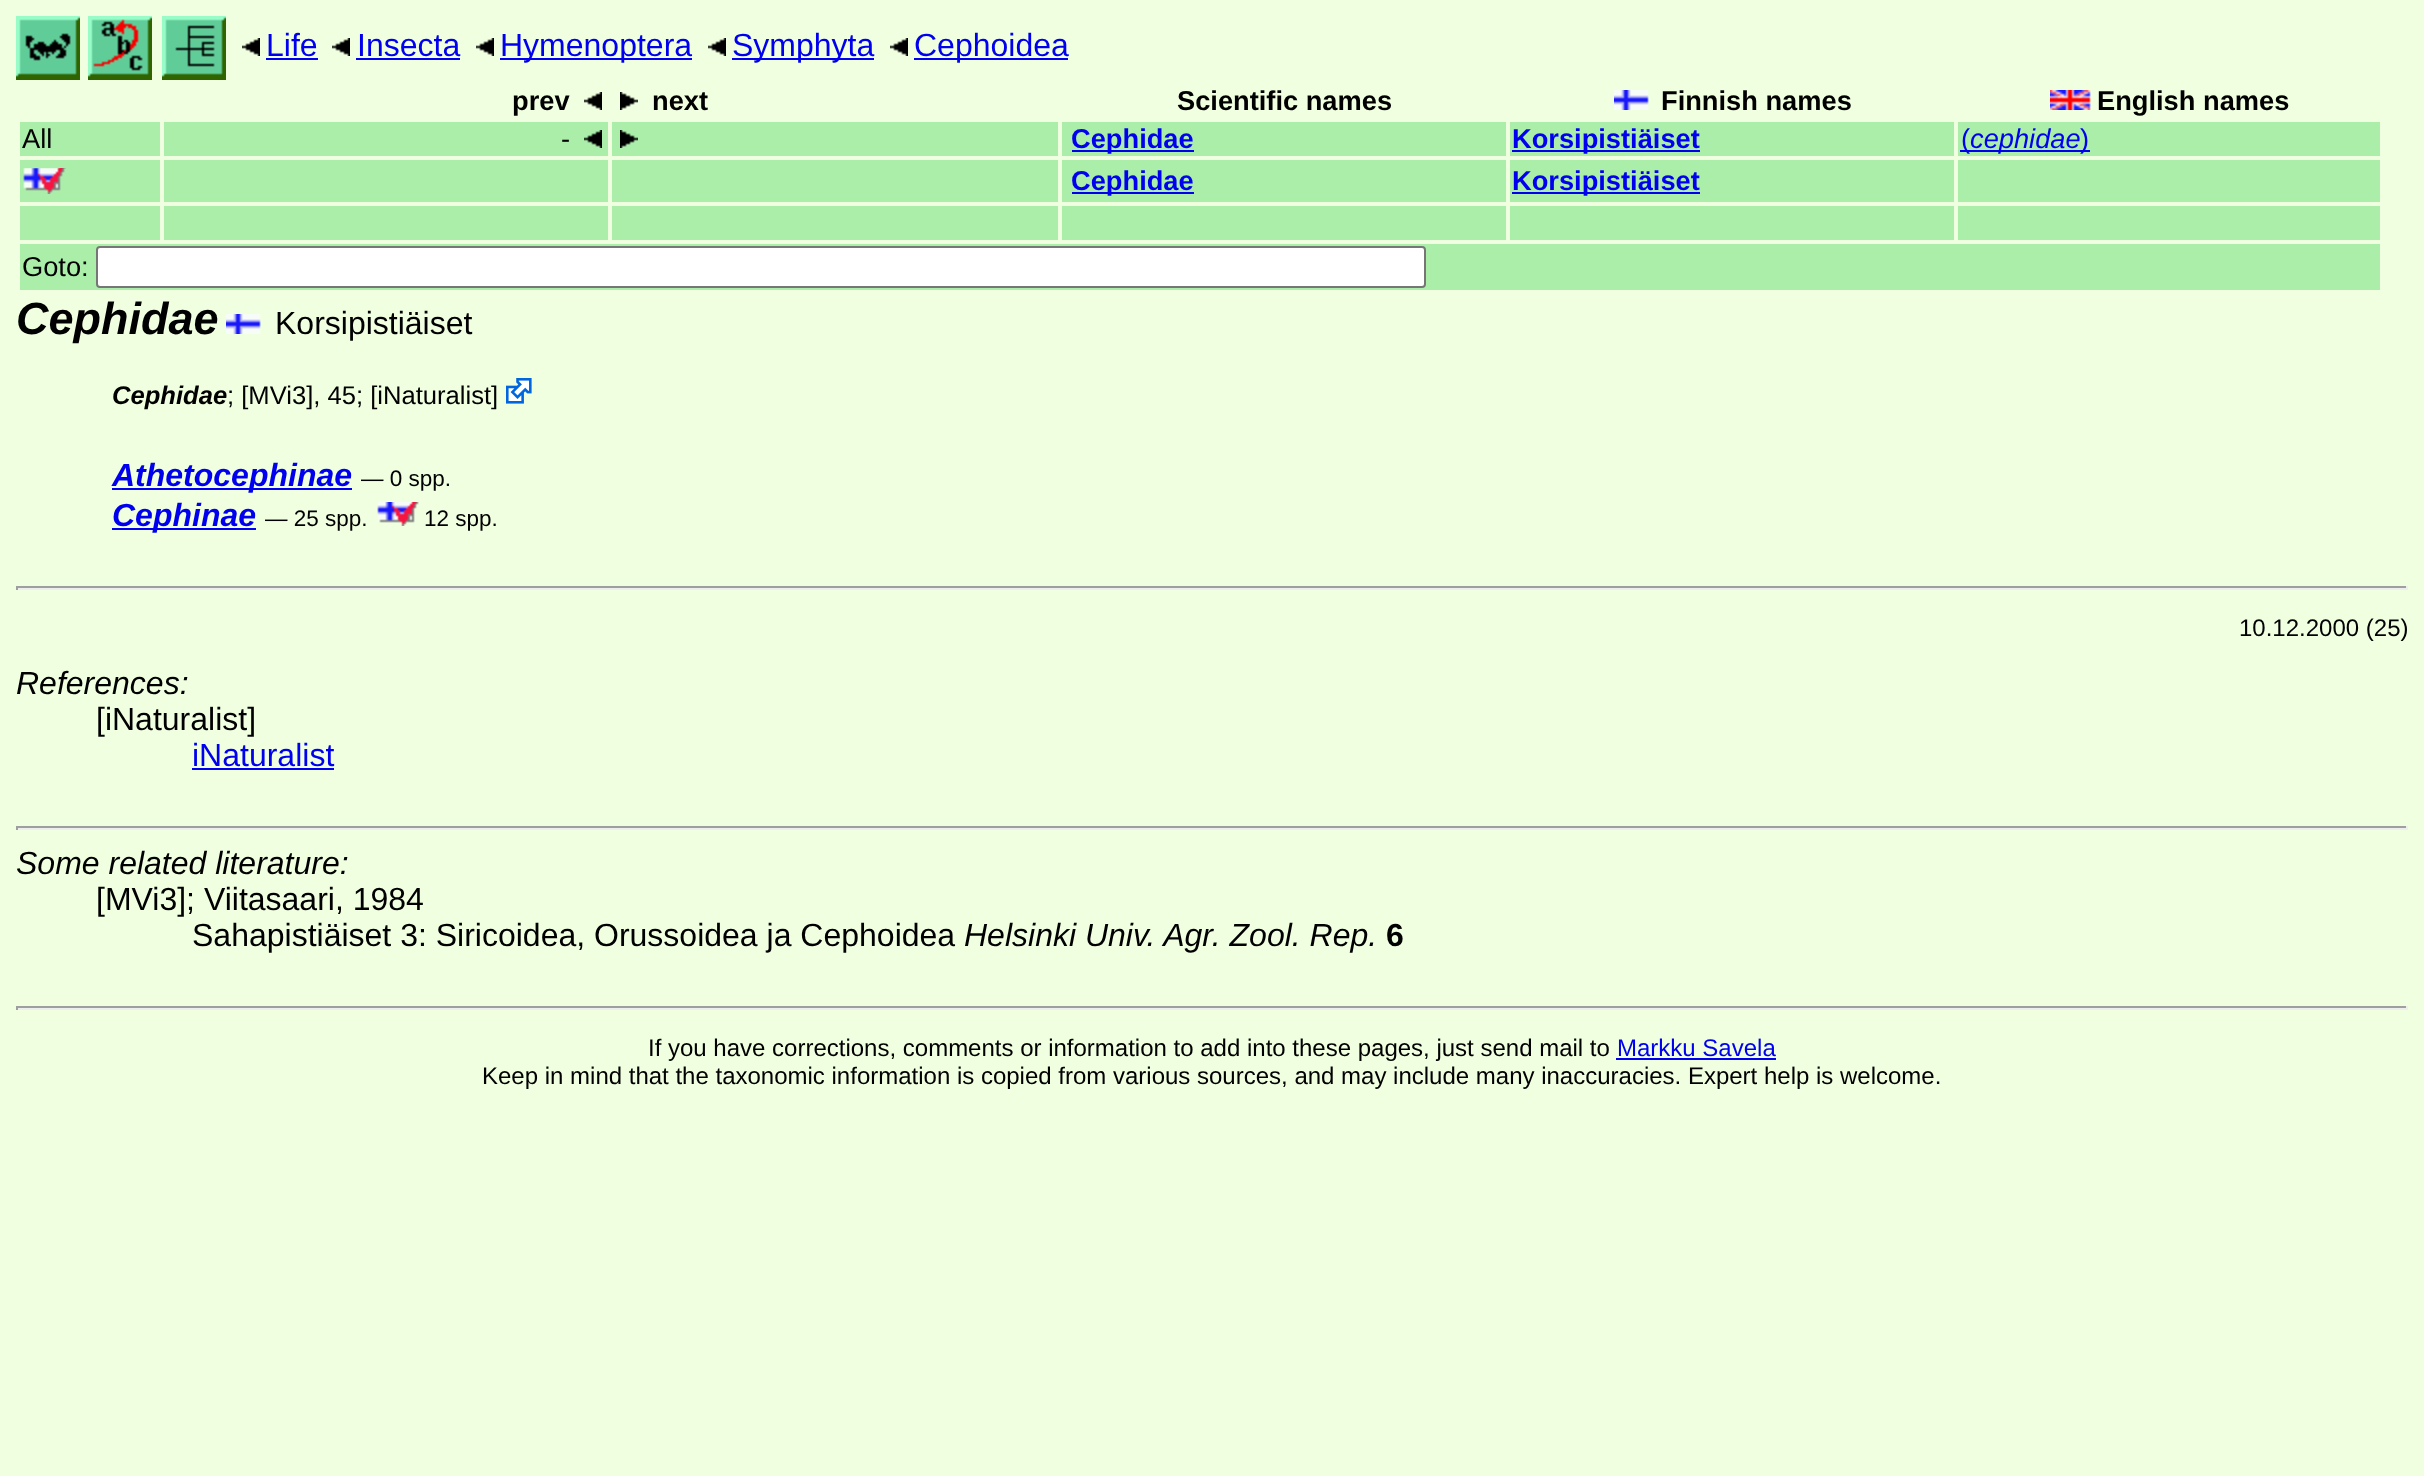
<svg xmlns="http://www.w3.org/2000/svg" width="2424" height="1476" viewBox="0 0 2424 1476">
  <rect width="100%" height="100%" fill="#f0ffe0"/>
  <image x="16" y="16" width="64" height="64" href="img1.png"/>
  <image x="88" y="16" width="64" height="64" href="img2.png"/>
  <image x="162" y="16" width="64" height="64" href="img3.png"/>
  <image x="242" y="38" width="18" height="18" href="img4.png"/>
  <text x="266" y="56" font-family="Liberation Sans" font-size="32" fill="#0000ee">Life</text>
  <rect x="266" y="58" width="52" height="2" fill="#0000ee"/>
  <image x="332" y="38" width="18" height="18" href="img4.png"/>
  <text x="357" y="56" font-family="Liberation Sans" font-size="32" fill="#0000ee">Insecta</text>
  <rect x="356" y="58" width="104" height="2" fill="#0000ee"/>
  <image x="476" y="38" width="18" height="18" href="img4.png"/>
  <rect x="500" y="58" width="192" height="2" fill="#0000ee"/>
  <text x="500" y="56" font-family="Liberation Sans" font-size="32" fill="#0000ee">Hymenoptera</text>
  <image x="708" y="38" width="18" height="18" href="img4.png"/>
  <rect x="732" y="58" width="142" height="2" fill="#0000ee"/>
  <text x="732" y="56" font-family="Liberation Sans" font-size="32" fill="#0000ee">Symphyta</text>
  <image x="890" y="38" width="18" height="18" href="img4.png"/>
  <rect x="914" y="58" width="154" height="2" fill="#0000ee"/>
  <text x="914" y="56" font-family="Liberation Sans" font-size="32" fill="#0000ee">Cephoidea</text>
  <text x="512" y="110" font-family="Liberation Sans" font-size="27.25" font-weight="bold" fill="#000000">prev</text>
  <image x="584" y="92" width="18" height="18" href="img4.png"/>
  <image x="620" y="92" width="18" height="18" href="img5.png"/>
  <text x="652" y="110" font-family="Liberation Sans" font-size="27.25" font-weight="bold" fill="#000000">next</text>
  <text x="1177" y="110" font-family="Liberation Sans" font-size="27.25" font-weight="bold" fill="#000000">Scientific names</text>
  <image x="1614" y="90" width="35" height="20" href="img6.png"/>
  <text x="1661" y="110" font-family="Liberation Sans" font-size="27.25" font-weight="bold" fill="#000000">Finnish names</text>
  <image x="2050" y="90" width="41" height="20" href="img7.png"/>
  <text x="2097" y="110" font-family="Liberation Sans" font-size="27.25" font-weight="bold" fill="#000000">English names</text>
  <rect x="20" y="122" width="140" height="34" fill="#aaeeaa"/>
  <text x="22" y="148" font-family="Liberation Sans" font-size="27.25" fill="#000000">All</text>
  <rect x="164" y="122" width="444" height="34" fill="#aaeeaa"/>
  <text x="561" y="148" font-family="Liberation Sans" font-size="27.25" fill="#000000">-</text>
  <image x="584" y="130" width="18" height="18" href="img8.png"/>
  <rect x="612" y="122" width="446" height="34" fill="#aaeeaa"/>
  <image x="620" y="130" width="18" height="18" href="img9.png"/>
  <rect x="1062" y="122" width="444" height="34" fill="#aaeeaa"/>
  <rect x="1072" y="150" width="122" height="2" fill="#0000ee"/>
  <text x="1071" y="148" font-family="Liberation Sans" font-size="27.25" font-weight="bold" fill="#0000ee">Cephidae</text>
  <rect x="1510" y="122" width="444" height="34" fill="#aaeeaa"/>
  <rect x="1512" y="150" width="188" height="2" fill="#0000ee"/>
  <text x="1512" y="148" font-family="Liberation Sans" font-size="27.25" font-weight="bold" fill="#0000ee">Korsipistiäiset</text>
  <rect x="1958" y="122" width="422" height="34" fill="#aaeeaa"/>
  <rect x="1960" y="150" width="130" height="2" fill="#0000ee"/>
  <text x="1961" y="148" font-family="Liberation Sans" font-size="27.25" fill="#0000ee">(</text>
  <text x="1970" y="148" font-family="Liberation Sans" font-size="27.25" font-style="italic" fill="#0000ee">cephidae</text>
  <text x="2080" y="148" font-family="Liberation Sans" font-size="27.25" fill="#0000ee">)</text>
  <rect x="20" y="160" width="140" height="42" fill="#aaeeaa"/>
  <image x="23" y="168" width="43" height="26" href="img10.png"/>
  <rect x="164" y="160" width="444" height="42" fill="#aaeeaa"/>
  <rect x="612" y="160" width="446" height="42" fill="#aaeeaa"/>
  <rect x="1062" y="160" width="444" height="42" fill="#aaeeaa"/>
  <rect x="1072" y="192" width="122" height="2" fill="#0000ee"/>
  <text x="1071" y="190" font-family="Liberation Sans" font-size="27.25" font-weight="bold" fill="#0000ee">Cephidae</text>
  <rect x="1510" y="160" width="444" height="42" fill="#aaeeaa"/>
  <rect x="1512" y="192" width="188" height="2" fill="#0000ee"/>
  <text x="1512" y="190" font-family="Liberation Sans" font-size="27.25" font-weight="bold" fill="#0000ee">Korsipistiäiset</text>
  <rect x="1958" y="160" width="422" height="42" fill="#aaeeaa"/>
  <rect x="20" y="206" width="140" height="34" fill="#aaeeaa"/>
  <rect x="164" y="206" width="444" height="34" fill="#aaeeaa"/>
  <rect x="612" y="206" width="446" height="34" fill="#aaeeaa"/>
  <rect x="1062" y="206" width="444" height="34" fill="#aaeeaa"/>
  <rect x="1510" y="206" width="444" height="34" fill="#aaeeaa"/>
  <rect x="1958" y="206" width="422" height="34" fill="#aaeeaa"/>
  <rect x="20" y="244" width="2360" height="46" fill="#aaeeaa"/>
  <text x="22" y="276" font-family="Liberation Sans" font-size="27.25" fill="#000000">Goto:</text>
  <rect x="97" y="247" width="1328" height="40" rx="3" fill="#ffffff" stroke="#767676" stroke-width="2"/>
  <text x="16" y="334" font-family="Liberation Sans" font-size="45" font-weight="bold" font-style="italic" fill="#000000">Cephidae</text>
  <image x="226" y="314" width="35" height="20" href="img6.png"/>
  <text x="275" y="334" font-family="Liberation Sans" font-size="32" fill="#000000">Korsipistiäiset</text>
  <text x="112" y="404" font-family="Liberation Sans" font-size="25.6" font-weight="bold" font-style="italic" fill="#000000">Cephidae</text>
  <text x="227" y="404" font-family="Liberation Sans" font-size="25.6" fill="#000000">; [MVi3], 45; [iNaturalist]</text>
  <image x="506" y="378" width="26" height="26" href="img11.png"/>
  <rect x="112" y="488" width="240" height="2" fill="#0000ee"/>
  <text x="112" y="486" font-family="Liberation Sans" font-size="32" font-weight="bold" font-style="italic" fill="#0000ee">Athetocephinae</text>
  <text x="361" y="486" font-family="Liberation Sans" font-size="22.5" fill="#000000">— 0 spp.</text>
  <rect x="112" y="528" width="144" height="2" fill="#0000ee"/>
  <text x="112" y="526" font-family="Liberation Sans" font-size="32" font-weight="bold" font-style="italic" fill="#0000ee">Cephinae</text>
  <text x="265" y="526" font-family="Liberation Sans" font-size="22.5" fill="#000000">— 25 spp.</text>
  <image x="377" y="502" width="42" height="24" href="img12.png"/>
  <text x="424" y="526" font-family="Liberation Sans" font-size="22.5" fill="#000000">12 spp.</text>
  <rect x="16" y="586" width="2392" height="2" fill="#9f9f9f"/>
  <rect x="2406" y="586" width="2" height="4" fill="#eeeeee"/>
  <rect x="16" y="588" width="2392" height="2" fill="#eeeeee"/>
  <rect x="16" y="586" width="2" height="4" fill="#9f9f9f"/>
  <text x="2239" y="636" font-family="Liberation Sans" font-size="24" fill="#000000">10.12.2000 (25)</text>
  <text x="16" y="694" font-family="Liberation Sans" font-size="32" font-style="italic" fill="#000000">References:</text>
  <text x="96" y="730" font-family="Liberation Sans" font-size="32" fill="#000000">[iNaturalist]</text>
  <text x="192" y="766" font-family="Liberation Sans" font-size="32" fill="#0000ee">iNaturalist</text>
  <rect x="192" y="768" width="142" height="2" fill="#0000ee"/>
  <rect x="16" y="826" width="2392" height="2" fill="#9f9f9f"/>
  <rect x="2406" y="826" width="2" height="4" fill="#eeeeee"/>
  <rect x="16" y="828" width="2392" height="2" fill="#eeeeee"/>
  <rect x="16" y="826" width="2" height="4" fill="#9f9f9f"/>
  <text x="16" y="874" font-family="Liberation Sans" font-size="32" font-style="italic" fill="#000000">Some related literature:</text>
  <text x="96" y="910" font-family="Liberation Sans" font-size="32" fill="#000000">[MVi3]; Viitasaari, 1984</text>
  <text x="192" y="946" font-family="Liberation Sans" font-size="32" fill="#000000">Sahapistiäiset 3: Siricoidea, Orussoidea ja Cephoidea</text>
  <text x="964" y="946" font-family="Liberation Sans" font-size="32" font-style="italic" fill="#000000">Helsinki Univ. Agr. Zool. Rep.</text>
  <text x="1386" y="946" font-family="Liberation Sans" font-size="32" font-weight="bold" fill="#000000">6</text>
  <rect x="16" y="1006" width="2392" height="2" fill="#9f9f9f"/>
  <rect x="2406" y="1006" width="2" height="4" fill="#eeeeee"/>
  <rect x="16" y="1008" width="2392" height="2" fill="#eeeeee"/>
  <rect x="16" y="1006" width="2" height="4" fill="#9f9f9f"/>
  <text x="648" y="1056" font-family="Liberation Sans" font-size="24" fill="#000000">If you have corrections, comments or information to add into these pages, just send mail to</text>
  <text x="1617" y="1056" font-family="Liberation Sans" font-size="24" fill="#0000ee">Markku Savela</text>
  <rect x="1616" y="1058" width="160" height="2" fill="#0000ee"/>
  <text x="482" y="1084" font-family="Liberation Sans" font-size="24" fill="#000000">Keep in mind that the taxonomic information is copied from various sources, and may include many inaccuracies. Expert help is welcome.</text>
</svg>
